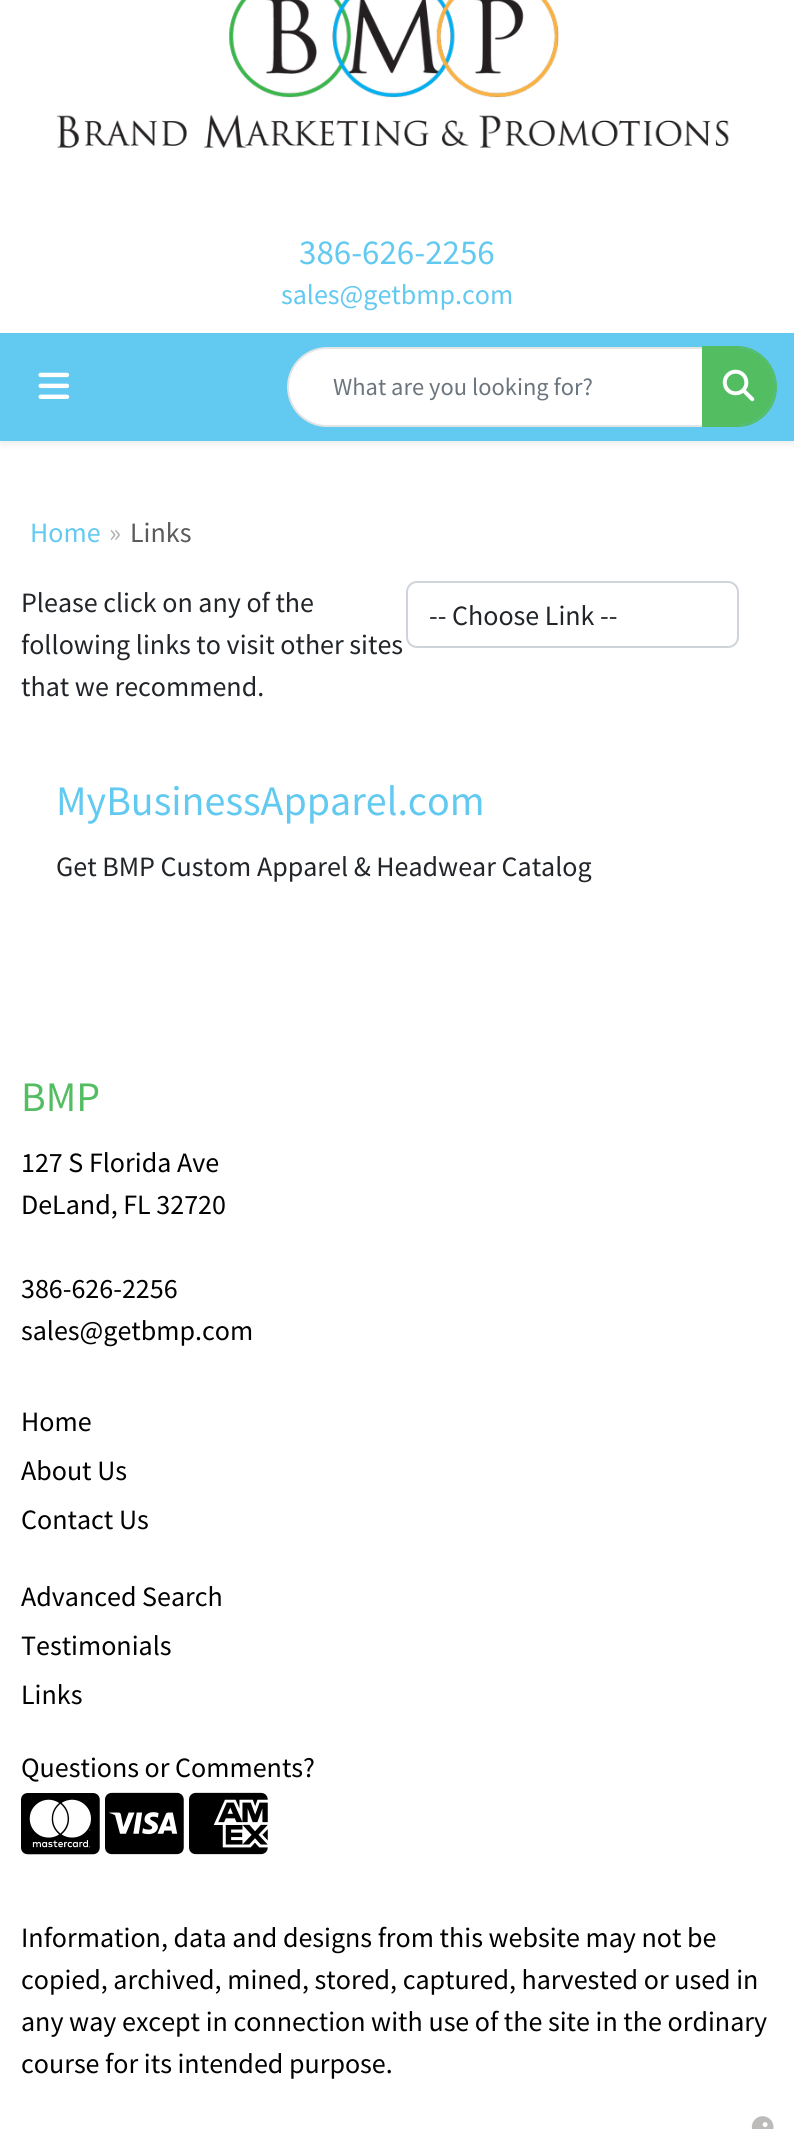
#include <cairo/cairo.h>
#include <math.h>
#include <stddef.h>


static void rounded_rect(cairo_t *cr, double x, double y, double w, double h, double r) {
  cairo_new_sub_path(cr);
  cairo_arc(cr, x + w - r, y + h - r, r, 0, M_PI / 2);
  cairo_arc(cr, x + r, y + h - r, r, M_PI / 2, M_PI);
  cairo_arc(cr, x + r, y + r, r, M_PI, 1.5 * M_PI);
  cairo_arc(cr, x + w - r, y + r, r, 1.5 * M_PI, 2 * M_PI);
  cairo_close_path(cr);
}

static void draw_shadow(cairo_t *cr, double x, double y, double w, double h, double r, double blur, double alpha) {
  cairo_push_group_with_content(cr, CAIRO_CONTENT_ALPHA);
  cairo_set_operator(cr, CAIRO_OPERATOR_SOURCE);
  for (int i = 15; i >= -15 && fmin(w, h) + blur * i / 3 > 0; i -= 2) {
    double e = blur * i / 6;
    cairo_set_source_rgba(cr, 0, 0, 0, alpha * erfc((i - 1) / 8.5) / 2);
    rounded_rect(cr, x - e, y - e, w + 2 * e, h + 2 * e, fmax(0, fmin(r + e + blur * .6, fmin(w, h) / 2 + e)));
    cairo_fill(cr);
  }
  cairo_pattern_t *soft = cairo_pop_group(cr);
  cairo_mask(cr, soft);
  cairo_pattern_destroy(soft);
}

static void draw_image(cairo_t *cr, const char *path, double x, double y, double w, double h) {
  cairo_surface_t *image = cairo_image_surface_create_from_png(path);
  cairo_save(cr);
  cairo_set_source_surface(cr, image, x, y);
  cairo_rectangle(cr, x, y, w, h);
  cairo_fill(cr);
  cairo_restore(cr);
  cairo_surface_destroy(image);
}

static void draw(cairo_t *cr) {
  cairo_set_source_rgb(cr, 1, 1, 1);
  cairo_paint(cr);
  draw_image(cr, "images/1.png", 56, 0, 673, 148);
  cairo_set_source_rgb(cr, 0, 0, 0);
  draw_shadow(cr, 0, 336, 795, 109, 0, 3.5, 0.07);
  cairo_set_source_rgb(cr, 98 / 255.0, 201 / 255.0, 240 / 255.0);
  cairo_rectangle(cr, 0, 333, 794, 108);
  cairo_fill(cr);
  draw_image(cr, "images/2.png", 38, 372, 32, 27);
  cairo_set_source_rgb(cr, 1, 1, 1);
  cairo_new_path(cr);
  cairo_move_to(cr, 327, 348);
  cairo_line_to(cr, 703, 348);
  cairo_line_to(cr, 703, 426);
  cairo_line_to(cr, 327, 426);
  cairo_curve_to(cr, 305.5, 426, 288, 408.5, 288, 387);
  cairo_curve_to(cr, 288, 365.5, 305.5, 348, 327, 348);
  cairo_close_path(cr);
  cairo_fill_preserve(cr);
  cairo_set_source_rgb(cr, 228 / 255.0, 228 / 255.0, 228 / 255.0);
  cairo_stroke(cr);
  cairo_set_source_rgb(cr, 83 / 255.0, 189 / 255.0, 98 / 255.0);
  cairo_new_path(cr);
  cairo_move_to(cr, 702, 348);
  cairo_line_to(cr, 736.5, 348);
  cairo_curve_to(cr, 758, 348, 775, 365, 775, 386.5);
  cairo_curve_to(cr, 775, 408, 758, 425, 736.5, 425);
  cairo_line_to(cr, 702, 425);
  cairo_close_path(cr);
  cairo_fill(cr);
  cairo_set_fill_rule(cr, CAIRO_FILL_RULE_EVEN_ODD);
  cairo_new_path(cr);
  cairo_move_to(cr, 702, 346);
  cairo_line_to(cr, 737, 346);
  cairo_curve_to(cr, 759, 346, 777, 365, 777, 387);
  cairo_curve_to(cr, 777, 409, 759, 427, 737, 427);
  cairo_line_to(cr, 702, 427);
  cairo_close_path(cr);
  cairo_move_to(cr, 702, 348);
  cairo_line_to(cr, 737, 348);
  cairo_curve_to(cr, 758, 348, 775, 365, 775, 387);
  cairo_curve_to(cr, 775, 408, 758, 425, 737, 425);
  cairo_line_to(cr, 702, 425);
  cairo_close_path(cr);
  cairo_fill(cr);
  draw_image(cr, "images/3.png", 722, 369, 33, 33);
  rounded_rect(cr, 407, 582, 331, 65, 10);
  cairo_set_source_rgb(cr, 206 / 255.0, 212 / 255.0, 218 / 255.0);
  cairo_stroke(cr);
  draw_image(cr, "images/4.png", 21, 1793, 79, 62);
  draw_image(cr, "images/5.png", 105, 1792, 79, 63);
  draw_image(cr, "images/6.png", 189, 1792, 79, 63);
  draw_image(cr, "images/7.png", 751, 2116, 23, 13);
  cairo_select_font_face(cr, "Source Sans Pro", CAIRO_FONT_SLANT_NORMAL, CAIRO_FONT_WEIGHT_NORMAL);
  cairo_set_font_size(cr, 35);
  cairo_set_source_rgb(cr, 98 / 255.0, 201 / 255.0, 240 / 255.0);
  cairo_move_to(cr, 299, 264);
  cairo_show_text(cr, "386-626-2256");
  cairo_set_font_size(cr, 28);
  cairo_move_to(cr, 281, 304);
  cairo_show_text(cr, "sales@getbmp.com");
  cairo_set_font_size(cr, 24.5);
  cairo_set_source_rgb(cr, 108 / 255.0, 117 / 255.0, 125 / 255.0);
  cairo_move_to(cr, 333, 395);
  cairo_show_text(cr, "What are you looking for?");
  cairo_set_font_size(cr, 28);
  cairo_set_source_rgb(cr, 98 / 255.0, 201 / 255.0, 240 / 255.0);
  cairo_move_to(cr, 30, 542);
  cairo_show_text(cr, "Home");
  cairo_set_source_rgb(cr, 178 / 255.0, 177 / 255.0, 177 / 255.0);
  cairo_move_to(cr, 109, 542);
  cairo_show_text(cr, "»");
  cairo_set_source_rgb(cr, 91 / 255.0, 90 / 255.0, 90 / 255.0);
  cairo_move_to(cr, 130, 542);
  cairo_show_text(cr, "Links");
  cairo_set_source_rgb(cr, 33 / 255.0, 37 / 255.0, 41 / 255.0);
  cairo_move_to(cr, 21, 612);
  cairo_show_text(cr, "Please click on any of the");
  cairo_move_to(cr, 21, 654);
  cairo_show_text(cr, "following links to visit other sites");
  cairo_move_to(cr, 21, 696);
  cairo_show_text(cr, "that we recommend.");
  cairo_move_to(cr, 429, 625);
  cairo_show_text(cr, "-- Choose Link --");
  cairo_set_font_size(cr, 42);
  cairo_set_source_rgb(cr, 98 / 255.0, 201 / 255.0, 240 / 255.0);
  cairo_move_to(cr, 56, 815);
  cairo_show_text(cr, "MyBusinessApparel.com");
  cairo_set_font_size(cr, 28);
  cairo_set_source_rgb(cr, 33 / 255.0, 37 / 255.0, 41 / 255.0);
  cairo_move_to(cr, 56, 876);
  cairo_show_text(cr, "Get BMP Custom Apparel & Headwear Catalog");
  cairo_set_font_size(cr, 42);
  cairo_set_source_rgb(cr, 83 / 255.0, 189 / 255.0, 98 / 255.0);
  cairo_move_to(cr, 21, 1111);
  cairo_show_text(cr, "BMP");
  cairo_set_font_size(cr, 28);
  cairo_set_source_rgb(cr, 0, 0, 0);
  cairo_move_to(cr, 21, 1172);
  cairo_show_text(cr, "127 S Florida Ave");
  cairo_move_to(cr, 21, 1214);
  cairo_show_text(cr, "DeLand, FL 32720");
  cairo_move_to(cr, 21, 1298);
  cairo_show_text(cr, "386-626-2256");
  cairo_move_to(cr, 21, 1340);
  cairo_show_text(cr, "sales@getbmp.com");
  cairo_move_to(cr, 21, 1431);
  cairo_show_text(cr, "Home");
  cairo_move_to(cr, 21, 1480);
  cairo_show_text(cr, "About Us");
  cairo_move_to(cr, 21, 1529);
  cairo_show_text(cr, "Contact Us");
  cairo_move_to(cr, 21, 1606);
  cairo_show_text(cr, "Advanced Search");
  cairo_move_to(cr, 21, 1655);
  cairo_show_text(cr, "Testimonials");
  cairo_move_to(cr, 21, 1704);
  cairo_show_text(cr, "Links");
  cairo_move_to(cr, 21, 1777);
  cairo_show_text(cr, "Questions or Comments?");
  cairo_move_to(cr, 21, 1947);
  cairo_show_text(cr, "Information, data and designs from this website may not be");
  cairo_move_to(cr, 21, 1989);
  cairo_show_text(cr, "copied, archived, mined, stored, captured, harvested or used in");
  cairo_move_to(cr, 21, 2031);
  cairo_show_text(cr, "any way except in connection with use of the site in the ordinary");
  cairo_move_to(cr, 21, 2073);
  cairo_show_text(cr, "course for its intended purpose.");
}

int main(void) {
  cairo_surface_t *surface = cairo_image_surface_create(CAIRO_FORMAT_RGB24, 794, 2129);
  cairo_t *cr = cairo_create(surface);
  cairo_font_options_t *options = cairo_font_options_create();
  cairo_font_options_set_hint_metrics(options, CAIRO_HINT_METRICS_OFF);
  cairo_font_options_set_hint_style(options, CAIRO_HINT_STYLE_NONE);
  cairo_set_font_options(cr, options);
  cairo_set_miter_limit(cr, 4);
  draw(cr);
  cairo_surface_write_to_png(surface, "out.png");
  cairo_font_options_destroy(options);
  cairo_destroy(cr);
  cairo_surface_destroy(surface);
  return 0;
}
